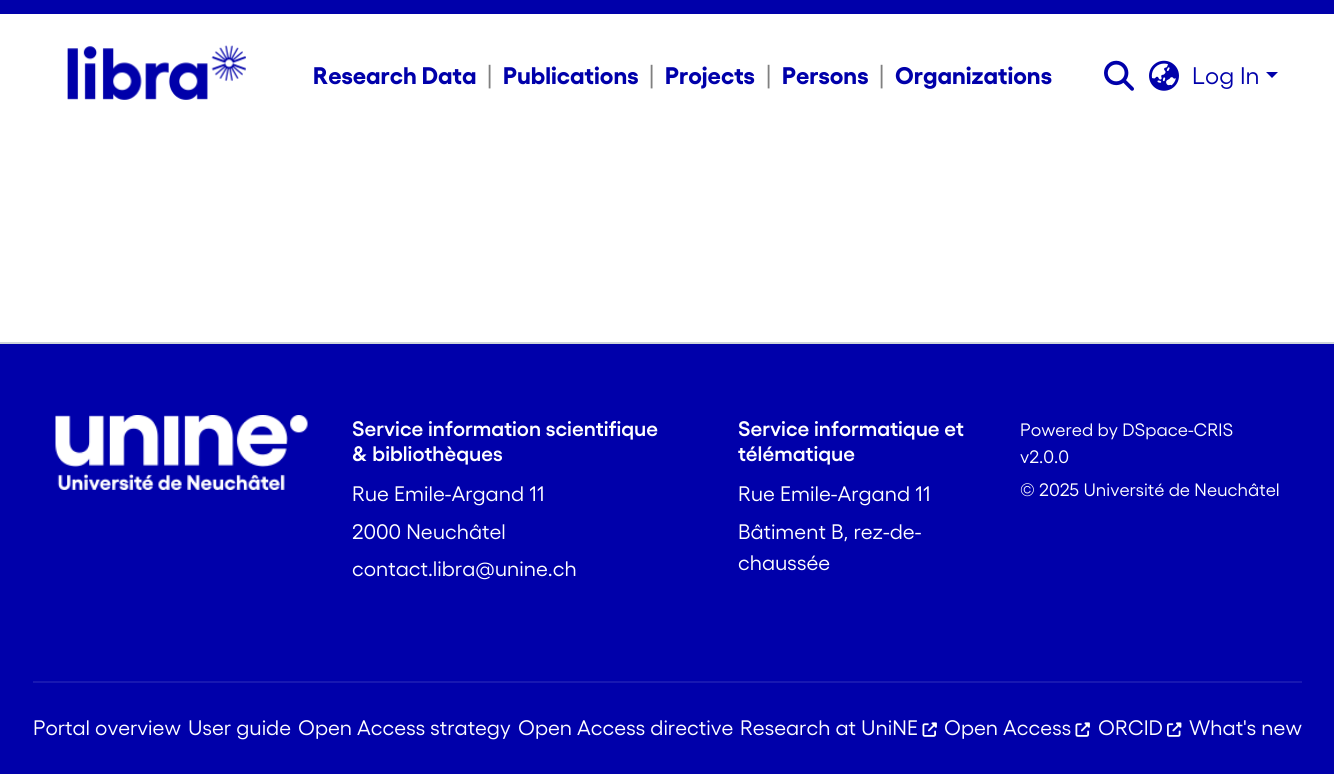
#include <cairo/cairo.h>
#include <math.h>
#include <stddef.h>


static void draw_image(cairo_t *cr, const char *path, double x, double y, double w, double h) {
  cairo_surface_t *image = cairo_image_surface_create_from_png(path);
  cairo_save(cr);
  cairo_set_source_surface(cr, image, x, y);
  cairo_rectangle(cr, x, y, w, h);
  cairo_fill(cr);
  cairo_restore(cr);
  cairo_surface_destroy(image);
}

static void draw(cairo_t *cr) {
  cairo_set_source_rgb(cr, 1, 1, 1);
  cairo_paint(cr);
  cairo_set_source_rgb(cr, 0, 0, 170 / 255.0);
  cairo_rectangle(cr, 0, 0, 1334, 14);
  cairo_fill(cr);
  draw_image(cr, "images/1.png", 67, 45, 179, 55);
  draw_image(cr, "images/2.png", 1104, 60, 30, 31);
  draw_image(cr, "images/3.png", 1149, 60, 30, 31);
  cairo_new_path(cr);
  cairo_move_to(cr, 1266, 72);
  cairo_line_to(cr, 1278, 72);
  cairo_line_to(cr, 1272, 78);
  cairo_close_path(cr);
  cairo_fill(cr);
  cairo_rectangle(cr, 0, 344, 1334, 430);
  cairo_fill(cr);
  cairo_set_source_rgb(cr, 206 / 255.0, 212 / 255.0, 218 / 255.0);
  cairo_rectangle(cr, 0, 342, 1334, 2);
  cairo_fill(cr);
  draw_image(cr, "images/4.png", 55, 415, 253, 75);
  cairo_set_source_rgb(cr, 24 / 255.0, 24 / 255.0, 178 / 255.0);
  cairo_rectangle(cr, 33, 681, 1269, 2);
  cairo_fill(cr);
  draw_image(cr, "images/5.png", 922, 722, 15, 15);
  draw_image(cr, "images/5.png", 1075, 722, 15, 15);
  draw_image(cr, "images/6.png", 1167, 722, 15, 15);
  cairo_select_font_face(cr, "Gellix", CAIRO_FONT_SLANT_NORMAL, CAIRO_FONT_WEIGHT_BOLD);
  cairo_set_font_size(cr, 24);
  cairo_set_source_rgb(cr, 0, 0, 170 / 255.0);
  cairo_move_to(cr, 313, 84);
  cairo_show_text(cr, "Research Data");
  cairo_select_font_face(cr, "Gellix", CAIRO_FONT_SLANT_NORMAL, CAIRO_FONT_WEIGHT_NORMAL);
  cairo_set_source_rgb(cr, 128 / 255.0, 128 / 255.0, 128 / 255.0);
  cairo_move_to(cr, 487, 84);
  cairo_show_text(cr, "|");
  cairo_select_font_face(cr, "Gellix", CAIRO_FONT_SLANT_NORMAL, CAIRO_FONT_WEIGHT_BOLD);
  cairo_set_source_rgb(cr, 0, 0, 170 / 255.0);
  cairo_move_to(cr, 503, 84);
  cairo_show_text(cr, "Publications");
  cairo_select_font_face(cr, "Gellix", CAIRO_FONT_SLANT_NORMAL, CAIRO_FONT_WEIGHT_NORMAL);
  cairo_set_source_rgb(cr, 128 / 255.0, 128 / 255.0, 128 / 255.0);
  cairo_move_to(cr, 649, 84);
  cairo_show_text(cr, "|");
  cairo_select_font_face(cr, "Gellix", CAIRO_FONT_SLANT_NORMAL, CAIRO_FONT_WEIGHT_BOLD);
  cairo_set_source_rgb(cr, 0, 0, 170 / 255.0);
  cairo_move_to(cr, 665, 84);
  cairo_show_text(cr, "Projects");
  cairo_select_font_face(cr, "Gellix", CAIRO_FONT_SLANT_NORMAL, CAIRO_FONT_WEIGHT_NORMAL);
  cairo_set_source_rgb(cr, 128 / 255.0, 128 / 255.0, 128 / 255.0);
  cairo_move_to(cr, 766, 84);
  cairo_show_text(cr, "|");
  cairo_select_font_face(cr, "Gellix", CAIRO_FONT_SLANT_NORMAL, CAIRO_FONT_WEIGHT_BOLD);
  cairo_set_source_rgb(cr, 0, 0, 170 / 255.0);
  cairo_move_to(cr, 782, 84);
  cairo_show_text(cr, "Persons");
  cairo_select_font_face(cr, "Gellix", CAIRO_FONT_SLANT_NORMAL, CAIRO_FONT_WEIGHT_NORMAL);
  cairo_set_source_rgb(cr, 128 / 255.0, 128 / 255.0, 128 / 255.0);
  cairo_move_to(cr, 879, 84);
  cairo_show_text(cr, "|");
  cairo_select_font_face(cr, "Gellix", CAIRO_FONT_SLANT_NORMAL, CAIRO_FONT_WEIGHT_BOLD);
  cairo_set_source_rgb(cr, 0, 0, 170 / 255.0);
  cairo_move_to(cr, 895, 84);
  cairo_show_text(cr, "Organizations");
  cairo_select_font_face(cr, "Gellix", CAIRO_FONT_SLANT_NORMAL, CAIRO_FONT_WEIGHT_NORMAL);
  cairo_move_to(cr, 1192, 84);
  cairo_show_text(cr, "Log In");
  cairo_select_font_face(cr, "Gellix SemiBold", CAIRO_FONT_SLANT_NORMAL, CAIRO_FONT_WEIGHT_NORMAL);
  cairo_set_font_size(cr, 21);
  cairo_set_source_rgb(cr, 1, 1, 1);
  cairo_move_to(cr, 352, 436);
  cairo_show_text(cr, "Service information scientifique");
  cairo_move_to(cr, 352, 461);
  cairo_show_text(cr, "& bibliothèques");
  cairo_select_font_face(cr, "Gellix", CAIRO_FONT_SLANT_NORMAL, CAIRO_FONT_WEIGHT_NORMAL);
  cairo_move_to(cr, 352, 501);
  cairo_show_text(cr, "Rue Emile-Argand 11");
  cairo_move_to(cr, 352, 539);
  cairo_show_text(cr, "2000 Neuchâtel");
  cairo_move_to(cr, 352, 576);
  cairo_show_text(cr, "contact.libra@unine.ch");
  cairo_select_font_face(cr, "Gellix SemiBold", CAIRO_FONT_SLANT_NORMAL, CAIRO_FONT_WEIGHT_NORMAL);
  cairo_move_to(cr, 738, 436);
  cairo_show_text(cr, "Service informatique et");
  cairo_move_to(cr, 738, 461);
  cairo_show_text(cr, "télématique");
  cairo_select_font_face(cr, "Gellix", CAIRO_FONT_SLANT_NORMAL, CAIRO_FONT_WEIGHT_NORMAL);
  cairo_move_to(cr, 738, 501);
  cairo_show_text(cr, "Rue Emile-Argand 11");
  cairo_move_to(cr, 738, 539);
  cairo_show_text(cr, "Bâtiment B, rez-de-");
  cairo_move_to(cr, 738, 570);
  cairo_show_text(cr, "chaussée");
  cairo_set_font_size(cr, 18);
  cairo_move_to(cr, 1020, 436);
  cairo_show_text(cr, "Powered by DSpace-CRIS");
  cairo_move_to(cr, 1020, 463);
  cairo_show_text(cr, "v2.0.0");
  cairo_move_to(cr, 1020, 496);
  cairo_show_text(cr, "© 2025 Université de Neuchâtel");
  cairo_set_font_size(cr, 21);
  cairo_move_to(cr, 33, 735);
  cairo_show_text(cr, "Portal overview");
  cairo_move_to(cr, 188, 735);
  cairo_show_text(cr, "User guide");
  cairo_move_to(cr, 298, 735);
  cairo_show_text(cr, "Open Access strategy");
  cairo_move_to(cr, 518, 735);
  cairo_show_text(cr, "Open Access directive");
  cairo_move_to(cr, 740, 735);
  cairo_show_text(cr, "Research at UniNE");
  cairo_move_to(cr, 944, 735);
  cairo_show_text(cr, "Open Access");
  cairo_move_to(cr, 1098, 735);
  cairo_show_text(cr, "ORCID");
  cairo_move_to(cr, 1189, 735);
  cairo_show_text(cr, "What's new");
}

int main(void) {
  cairo_surface_t *surface = cairo_image_surface_create(CAIRO_FORMAT_RGB24, 1334, 775);
  cairo_t *cr = cairo_create(surface);
  cairo_font_options_t *options = cairo_font_options_create();
  cairo_font_options_set_hint_metrics(options, CAIRO_HINT_METRICS_OFF);
  cairo_font_options_set_hint_style(options, CAIRO_HINT_STYLE_NONE);
  cairo_set_font_options(cr, options);
  cairo_set_miter_limit(cr, 4);
  draw(cr);
  cairo_surface_write_to_png(surface, "out.png");
  cairo_font_options_destroy(options);
  cairo_destroy(cr);
  cairo_surface_destroy(surface);
  return 0;
}
